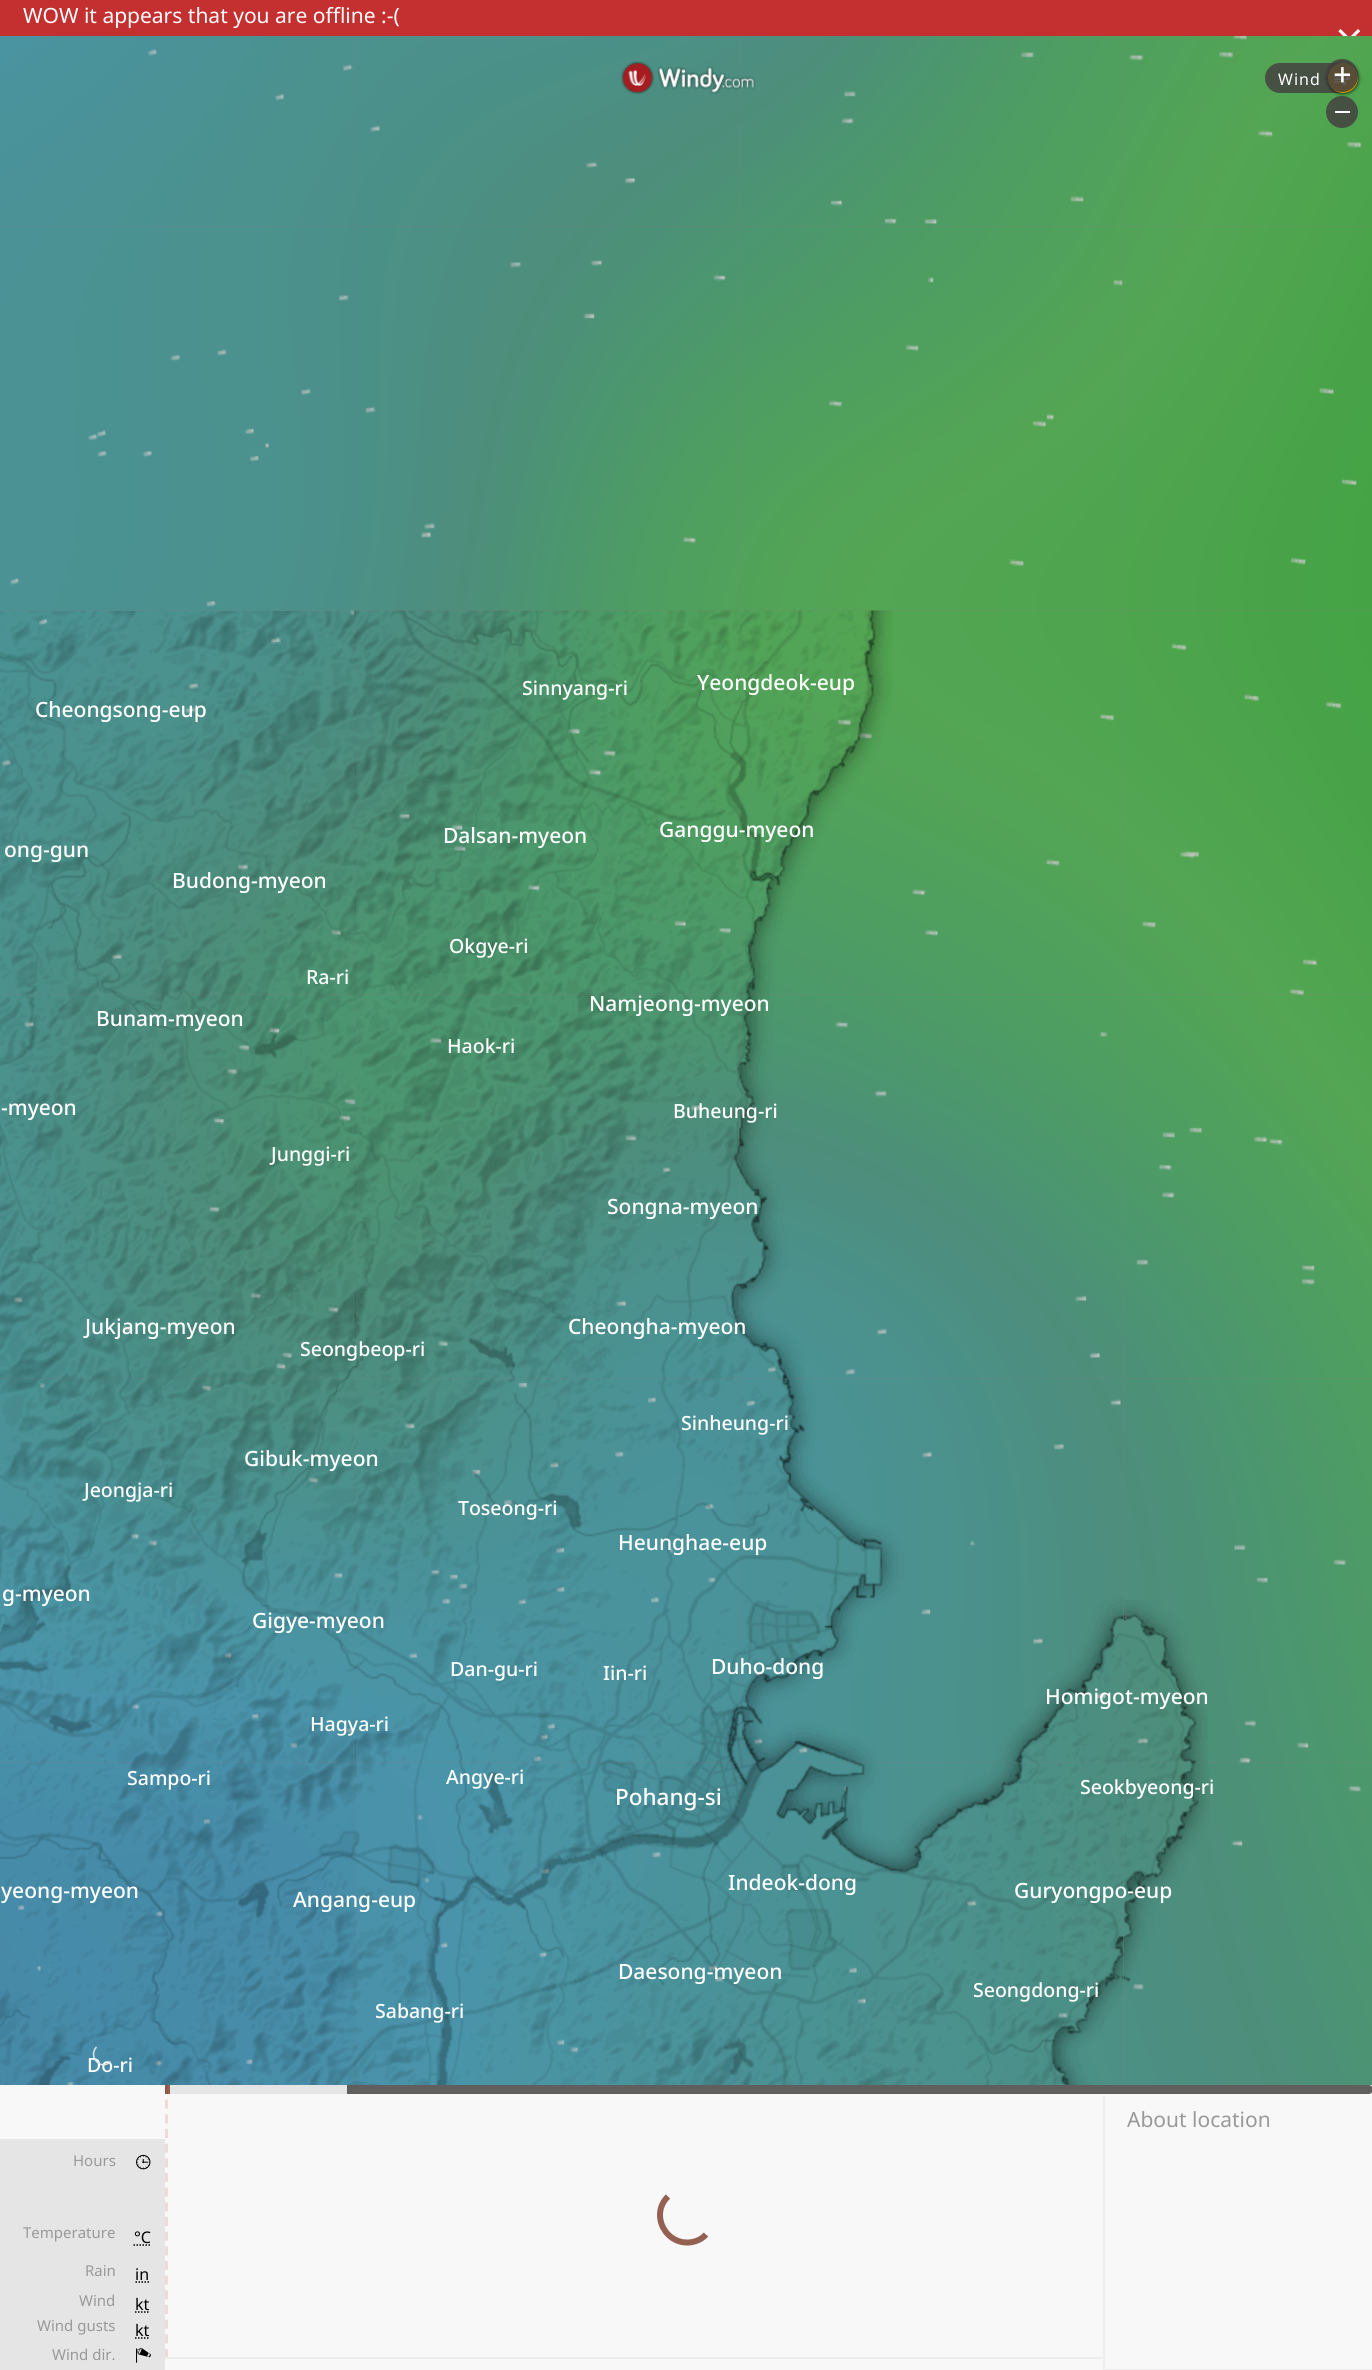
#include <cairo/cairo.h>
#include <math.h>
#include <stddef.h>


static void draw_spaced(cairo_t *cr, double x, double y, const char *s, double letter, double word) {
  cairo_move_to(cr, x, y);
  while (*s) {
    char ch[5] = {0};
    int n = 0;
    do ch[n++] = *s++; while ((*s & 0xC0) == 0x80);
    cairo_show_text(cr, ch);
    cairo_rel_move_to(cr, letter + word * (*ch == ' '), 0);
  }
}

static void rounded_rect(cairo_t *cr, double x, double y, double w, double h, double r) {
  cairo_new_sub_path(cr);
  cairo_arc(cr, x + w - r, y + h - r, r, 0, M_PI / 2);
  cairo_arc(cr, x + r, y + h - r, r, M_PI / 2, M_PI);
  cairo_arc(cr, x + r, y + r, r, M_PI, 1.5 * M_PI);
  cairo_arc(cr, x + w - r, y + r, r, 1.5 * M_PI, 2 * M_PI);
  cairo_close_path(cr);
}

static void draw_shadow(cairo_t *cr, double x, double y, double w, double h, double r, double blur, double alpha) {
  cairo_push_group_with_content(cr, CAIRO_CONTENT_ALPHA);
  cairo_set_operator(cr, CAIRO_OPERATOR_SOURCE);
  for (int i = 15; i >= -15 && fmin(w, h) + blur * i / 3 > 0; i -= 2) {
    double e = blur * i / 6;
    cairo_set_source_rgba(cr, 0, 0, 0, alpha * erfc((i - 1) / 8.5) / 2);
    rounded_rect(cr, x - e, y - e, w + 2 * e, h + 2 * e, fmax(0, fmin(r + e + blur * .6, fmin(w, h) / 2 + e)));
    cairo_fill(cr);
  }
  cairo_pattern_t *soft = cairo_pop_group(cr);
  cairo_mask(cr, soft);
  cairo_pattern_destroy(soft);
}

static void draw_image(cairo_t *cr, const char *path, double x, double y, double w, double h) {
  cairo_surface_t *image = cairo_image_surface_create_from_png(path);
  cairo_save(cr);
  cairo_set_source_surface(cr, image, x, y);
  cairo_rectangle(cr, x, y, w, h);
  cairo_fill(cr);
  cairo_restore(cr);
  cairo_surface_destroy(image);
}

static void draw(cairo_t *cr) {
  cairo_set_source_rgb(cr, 128 / 255.0, 128 / 255.0, 128 / 255.0);
  cairo_paint(cr);
  cairo_set_source_rgb(cr, 196 / 255.0, 47 / 255.0, 47 / 255.0);
  cairo_rectangle(cr, 0, 0, 1372, 36);
  cairo_fill(cr);
  draw_image(cr, "images/1.png", 1338, 29, 23, 7);
  draw_image(cr, "images/19.png", 355, 994, 385, 385);
  draw_image(cr, "images/20.png", 739, 994, 385, 385);
  draw_image(cr, "images/15.png", 355, 610, 385, 385);
  draw_image(cr, "images/23.png", 355, 1378, 385, 385);
  draw_image(cr, "images/18.png", 0, 994, 356, 385);
  draw_image(cr, "images/14.png", 0, 610, 356, 385);
  draw_image(cr, "images/16.png", 739, 610, 385, 385);
  draw_image(cr, "images/11.png", 355, 226, 385, 385);
  draw_image(cr, "images/10.png", 0, 226, 356, 385);
  draw_image(cr, "images/24.png", 739, 1378, 385, 385);
  draw_image(cr, "images/21.png", 1123, 994, 249, 385);
  draw_image(cr, "images/17.png", 1123, 610, 249, 385);
  draw_image(cr, "images/12.png", 739, 226, 385, 385);
  draw_image(cr, "images/7.png", 355, 36, 385, 191);
  draw_image(cr, "images/6.png", 0, 36, 356, 191);
  draw_image(cr, "images/13.png", 1123, 226, 249, 385);
  draw_image(cr, "images/8.png", 739, 36, 385, 191);
  draw_image(cr, "images/9.png", 1123, 36, 249, 191);
  draw_image(cr, "images/22.png", 0, 1378, 356, 385);
  draw_image(cr, "images/25.png", 1123, 1378, 249, 385);
  draw_image(cr, "images/27.png", 355, 1762, 385, 323);
  draw_image(cr, "images/26.png", 0, 1762, 356, 323);
  draw_image(cr, "images/28.png", 739, 1762, 385, 323);
  draw_image(cr, "images/29.png", 1123, 1762, 249, 323);
  draw_image(cr, "images/30.png", 1, 36, 1361, 2049);
  draw_image(cr, "images/2.png", 621, 61, 34, 34);
  draw_image(cr, "images/3.png", 657, 66, 99, 28);
  cairo_set_source_rgba(cr, 68 / 255.0, 65 / 255.0, 65 / 255.0, 0.84);
  rounded_rect(cr, 1265, 63, 93, 30, 15);
  cairo_fill(cr);
  cairo_set_source_rgb(cr, 0, 0, 0);
  draw_shadow(cr, 1328, 63, 30, 30, 15, 2, 1);
  cairo_set_source_rgb(cr, 212 / 255.0, 149 / 255.0, 0);
  cairo_arc(cr, 1343, 78, 15, 0, 2 * M_PI);
  cairo_fill(cr);
  draw_image(cr, "images/4.png", 1333, 73, 17, 12);
  cairo_set_source_rgba(cr, 68 / 255.0, 65 / 255.0, 65 / 255.0, 0.84);
  rounded_rect(cr, 1326, 59, 32, 33, 16);
  cairo_fill(cr);
  draw_image(cr, "images/5.png", 1334, 67, 17, 16);
  cairo_arc(cr, 1342, 112, 16, 0, 2 * M_PI);
  cairo_fill(cr);
  cairo_set_source_rgb(cr, 1, 1, 1);
  cairo_rectangle(cr, 1335, 111, 15, 2);
  cairo_fill(cr);
  draw_image(cr, "images/35.png", 355, 994, 385, 385);
  draw_image(cr, "images/36.png", 739, 994, 66, 385);
  draw_image(cr, "images/32.png", 355, 610, 385, 385);
  draw_image(cr, "images/31.png", 0, 611, 356, 384);
  draw_image(cr, "images/33.png", 739, 610, 154, 385);
  draw_image(cr, "images/38.png", 355, 1378, 385, 385);
  draw_image(cr, "images/34.png", 0, 995, 356, 384);
  draw_image(cr, "images/37.png", 0, 1379, 356, 384);
  draw_image(cr, "images/39.png", 739, 1378, 385, 385);
  draw_image(cr, "images/40.png", 1124, 1600, 84, 163);
  draw_image(cr, "images/42.png", 355, 1762, 385, 323);
  draw_image(cr, "images/41.png", 0, 1763, 356, 322);
  draw_image(cr, "images/43.png", 739, 1762, 385, 323);
  draw_image(cr, "images/44.png", 1124, 1763, 86, 225);
  cairo_set_source_rgb(cr, 248 / 255.0, 248 / 255.0, 248 / 255.0);
  cairo_rectangle(cr, 0, 2085, 1372, 285);
  cairo_fill(cr);
  cairo_set_source_rgb(cr, 97 / 255.0, 94 / 255.0, 94 / 255.0);
  rounded_rect(cr, 165, 2085, 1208, 9, 4.5);
  cairo_fill(cr);
  cairo_set_source_rgb(cr, 148 / 255.0, 96 / 255.0, 81 / 255.0);
  cairo_rectangle(cr, 165, 2085, 5, 9);
  cairo_fill(cr);
  cairo_set_source_rgb(cr, 229 / 255.0, 229 / 255.0, 229 / 255.0);
  cairo_rectangle(cr, 170, 2085, 177, 9);
  cairo_fill(cr);
  cairo_new_path(cr);
  cairo_move_to(cr, 166.5, 2085);
  cairo_line_to(cr, 166.5, 2358);
  cairo_set_source_rgba(cr, 157 / 255.0, 3 / 255.0, 0, 0.12);
  cairo_set_line_width(cr, 3);
  cairo_set_dash(cr, (double[]){9, 5.67}, 2, 0);
  cairo_stroke(cr);
  cairo_set_source_rgb(cr, 237 / 255.0, 237 / 255.0, 237 / 255.0);
  cairo_rectangle(cr, 1103, 2369, 269, 1);
  cairo_fill(cr);
  cairo_rectangle(cr, 1103, 2097, 2, 273);
  cairo_fill(cr);
  cairo_rectangle(cr, 165, 2357, 939, 2);
  cairo_fill(cr);
  cairo_set_source_rgb(cr, 229 / 255.0, 229 / 255.0, 229 / 255.0);
  cairo_rectangle(cr, 0, 2139, 165, 231);
  cairo_fill(cr);
  draw_image(cr, "images/45.png", 136, 2154, 15, 16);
  cairo_new_path(cr);
  cairo_move_to(cr, 133.5, 2245);
  cairo_line_to(cr, 151, 2245);
  cairo_set_source_rgb(cr, 0, 0, 0);
  cairo_set_line_width(cr, 1.5);
  cairo_set_dash(cr, (double[]){1.5, 1.5}, 2, 0);
  cairo_stroke(cr);
  cairo_new_path(cr);
  cairo_move_to(cr, 135.5, 2282);
  cairo_line_to(cr, 149.5, 2282);
  cairo_stroke(cr);
  cairo_new_path(cr);
  cairo_move_to(cr, 135, 2312);
  cairo_line_to(cr, 150, 2312);
  cairo_stroke(cr);
  cairo_new_path(cr);
  cairo_move_to(cr, 135, 2338);
  cairo_line_to(cr, 150, 2338);
  cairo_stroke(cr);
  draw_image(cr, "images/46.png", 136, 2348, 15, 15);
  cairo_new_path(cr);
  cairo_move_to(cr, 706, 2234.5);
  cairo_curve_to(cr, 702.5, 2238.5, 697.5, 2241, 692.5, 2242);
  cairo_curve_to(cr, 666.5, 2247, 649, 2215, 668, 2196.5);
  cairo_set_source_rgb(cr, 148 / 255.0, 96 / 255.0, 81 / 255.0);
  cairo_set_line_width(cr, 6);
  cairo_set_dash(cr, NULL, 0, 0);
  cairo_stroke(cr);
  cairo_select_font_face(cr, "Noto Sans", CAIRO_FONT_SLANT_NORMAL, CAIRO_FONT_WEIGHT_NORMAL);
  cairo_set_font_size(cr, 21);
  cairo_set_source_rgb(cr, 1, 1, 1);
  cairo_move_to(cr, 23, 23);
  cairo_show_text(cr, "WOW it appears that you are offline :-(");
  cairo_set_font_size(cr, 16);
  draw_spaced(cr, 1278, 85, "Wind", 1, 0);
  cairo_select_font_face(cr, "Noto Sans Medium", CAIRO_FONT_SLANT_NORMAL, CAIRO_FONT_WEIGHT_NORMAL);
  cairo_set_font_size(cr, 21);
  cairo_move_to(cr, 697, 690);
  cairo_show_text(cr, "Yeongdeok-eup");
  cairo_move_to(cr, 35, 717);
  cairo_show_text(cr, "Cheongsong-eup");
  cairo_move_to(cr, 4, 857);
  cairo_show_text(cr, "ong-gun");
  cairo_move_to(cr, 172, 888);
  cairo_show_text(cr, "Budong-myeon");
  cairo_set_font_size(cr, 19.5);
  cairo_move_to(cr, 306, 984);
  cairo_show_text(cr, "Ra-ri");
  cairo_move_to(cr, 522, 695);
  cairo_show_text(cr, "Sinnyang-ri");
  cairo_set_font_size(cr, 21);
  cairo_move_to(cr, 443, 843);
  cairo_show_text(cr, "Dalsan-myeon");
  cairo_move_to(cr, 659, 837);
  cairo_show_text(cr, "Ganggu-myeon");
  cairo_set_font_size(cr, 19.5);
  cairo_move_to(cr, 449, 953);
  cairo_show_text(cr, "Okgye-ri");
  cairo_set_font_size(cr, 21);
  cairo_move_to(cr, 96, 1026);
  cairo_show_text(cr, "Bunam-myeon");
  cairo_move_to(cr, 1, 1115);
  cairo_show_text(cr, "-myeon");
  cairo_set_font_size(cr, 19.5);
  cairo_move_to(cr, 271, 1161);
  cairo_show_text(cr, "Junggi-ri");
  cairo_set_font_size(cr, 21);
  cairo_move_to(cr, 85, 1334);
  cairo_show_text(cr, "Jukjang-myeon");
  cairo_move_to(cr, 589, 1011);
  cairo_show_text(cr, "Namjeong-myeon");
  cairo_set_font_size(cr, 19.5);
  cairo_move_to(cr, 447, 1053);
  cairo_show_text(cr, "Haok-ri");
  cairo_move_to(cr, 673, 1118);
  cairo_show_text(cr, "Buheung-ri");
  cairo_set_font_size(cr, 21);
  cairo_move_to(cr, 607, 1214);
  cairo_show_text(cr, "Songna-myeon");
  cairo_move_to(cr, 568, 1334);
  cairo_show_text(cr, "Cheongha-myeon");
  cairo_set_font_size(cr, 19.5);
  cairo_move_to(cr, 300, 1356);
  cairo_show_text(cr, "Seongbeop-ri");
  cairo_set_font_size(cr, 21);
  cairo_move_to(cr, 244, 1466);
  cairo_show_text(cr, "Gibuk-myeon");
  cairo_set_font_size(cr, 19.5);
  cairo_move_to(cr, 84, 1497);
  cairo_show_text(cr, "Jeongja-ri");
  cairo_set_font_size(cr, 21);
  cairo_move_to(cr, 2, 1601);
  cairo_show_text(cr, "g-myeon");
  cairo_move_to(cr, 252, 1628);
  cairo_show_text(cr, "Gigye-myeon");
  cairo_set_font_size(cr, 19.5);
  cairo_move_to(cr, 310, 1731);
  cairo_show_text(cr, "Hagya-ri");
  cairo_move_to(cr, 681, 1430);
  cairo_show_text(cr, "Sinheung-ri");
  cairo_move_to(cr, 458, 1515);
  cairo_show_text(cr, "Toseong-ri");
  cairo_set_font_size(cr, 21);
  cairo_move_to(cr, 618, 1550);
  cairo_show_text(cr, "Heunghae-eup");
  cairo_set_font_size(cr, 19.5);
  cairo_move_to(cr, 450, 1676);
  cairo_show_text(cr, "Dan-gu-ri");
  cairo_move_to(cr, 603, 1680);
  cairo_show_text(cr, "Iin-ri");
  cairo_set_font_size(cr, 21);
  cairo_move_to(cr, 711, 1674);
  cairo_show_text(cr, "Duho-dong");
  cairo_move_to(cr, 1045, 1704);
  cairo_show_text(cr, "Homigot-myeon");
  cairo_set_font_size(cr, 19.5);
  cairo_move_to(cr, 127, 1785);
  cairo_show_text(cr, "Sampo-ri");
  cairo_set_font_size(cr, 21);
  cairo_move_to(cr, 1, 1898);
  cairo_show_text(cr, "yeong-myeon");
  cairo_move_to(cr, 293, 1907);
  cairo_show_text(cr, "Angang-eup");
  cairo_set_font_size(cr, 19.5);
  cairo_move_to(cr, 87, 2072);
  cairo_show_text(cr, "Do-ri");
  cairo_move_to(cr, 446, 1784);
  cairo_show_text(cr, "Angye-ri");
  cairo_set_font_size(cr, 22.5);
  cairo_move_to(cr, 615, 1805);
  cairo_show_text(cr, "Pohang-si");
  cairo_set_font_size(cr, 21);
  cairo_move_to(cr, 618, 1979);
  cairo_show_text(cr, "Daesong-myeon");
  cairo_set_font_size(cr, 19.5);
  cairo_move_to(cr, 375, 2018);
  cairo_show_text(cr, "Sabang-ri");
  cairo_move_to(cr, 1080, 1794);
  cairo_show_text(cr, "Seokbyeong-ri");
  cairo_set_font_size(cr, 21);
  cairo_move_to(cr, 728, 1890);
  cairo_show_text(cr, "Indeok-dong");
  cairo_move_to(cr, 1014, 1898);
  cairo_show_text(cr, "Guryongpo-eup");
  cairo_set_font_size(cr, 19.5);
  cairo_move_to(cr, 973, 1997);
  cairo_show_text(cr, "Seongdong-ri");
  cairo_new_path(cr);
  cairo_move_to(cr, 110.5, 2061.5);
  cairo_curve_to(cr, 101, 2071.5, 87.5, 2056.5, 96.5, 2047);
  cairo_set_source_rgb(cr, 229 / 255.0, 229 / 255.0, 229 / 255.0);
  cairo_set_line_width(cr, 1.5);
  cairo_stroke(cr);
  cairo_select_font_face(cr, "Noto Sans", CAIRO_FONT_SLANT_NORMAL, CAIRO_FONT_WEIGHT_NORMAL);
  cairo_set_font_size(cr, 21);
  cairo_set_source_rgb(cr, 153 / 255.0, 153 / 255.0, 153 / 255.0);
  cairo_move_to(cr, 1127, 2127);
  cairo_show_text(cr, "About location");
  cairo_set_font_size(cr, 15);
  cairo_move_to(cr, 73, 2166);
  cairo_show_text(cr, "Hours");
  cairo_move_to(cr, 23, 2238);
  cairo_show_text(cr, "Temperature");
  cairo_set_font_size(cr, 16);
  cairo_set_source_rgb(cr, 0, 0, 0);
  cairo_move_to(cr, 134, 2243);
  cairo_show_text(cr, "°C");
  cairo_set_font_size(cr, 15);
  cairo_set_source_rgb(cr, 153 / 255.0, 153 / 255.0, 153 / 255.0);
  cairo_move_to(cr, 85, 2276);
  cairo_show_text(cr, "Rain");
  cairo_set_font_size(cr, 16);
  cairo_set_source_rgb(cr, 0, 0, 0);
  cairo_move_to(cr, 135, 2280);
  cairo_show_text(cr, "in");
  cairo_set_font_size(cr, 15);
  cairo_set_source_rgb(cr, 153 / 255.0, 153 / 255.0, 153 / 255.0);
  cairo_move_to(cr, 79, 2306);
  cairo_show_text(cr, "Wind");
  cairo_set_font_size(cr, 16);
  cairo_set_source_rgb(cr, 0, 0, 0);
  cairo_move_to(cr, 135, 2310);
  cairo_show_text(cr, "kt");
  cairo_set_font_size(cr, 15);
  cairo_set_source_rgb(cr, 153 / 255.0, 153 / 255.0, 153 / 255.0);
  cairo_move_to(cr, 37, 2331);
  cairo_show_text(cr, "Wind gusts");
  cairo_set_font_size(cr, 16);
  cairo_set_source_rgb(cr, 0, 0, 0);
  cairo_move_to(cr, 135, 2336);
  cairo_show_text(cr, "kt");
  cairo_set_font_size(cr, 15);
  cairo_set_source_rgb(cr, 153 / 255.0, 153 / 255.0, 153 / 255.0);
  cairo_move_to(cr, 52, 2360);
  cairo_show_text(cr, "Wind dir.");
}

int main(void) {
  cairo_surface_t *surface = cairo_image_surface_create(CAIRO_FORMAT_RGB24, 1372, 2370);
  cairo_t *cr = cairo_create(surface);
  cairo_font_options_t *options = cairo_font_options_create();
  cairo_font_options_set_hint_metrics(options, CAIRO_HINT_METRICS_OFF);
  cairo_font_options_set_hint_style(options, CAIRO_HINT_STYLE_NONE);
  cairo_set_font_options(cr, options);
  cairo_set_miter_limit(cr, 4);
  draw(cr);
  cairo_surface_write_to_png(surface, "out.png");
  cairo_font_options_destroy(options);
  cairo_destroy(cr);
  cairo_surface_destroy(surface);
  return 0;
}
